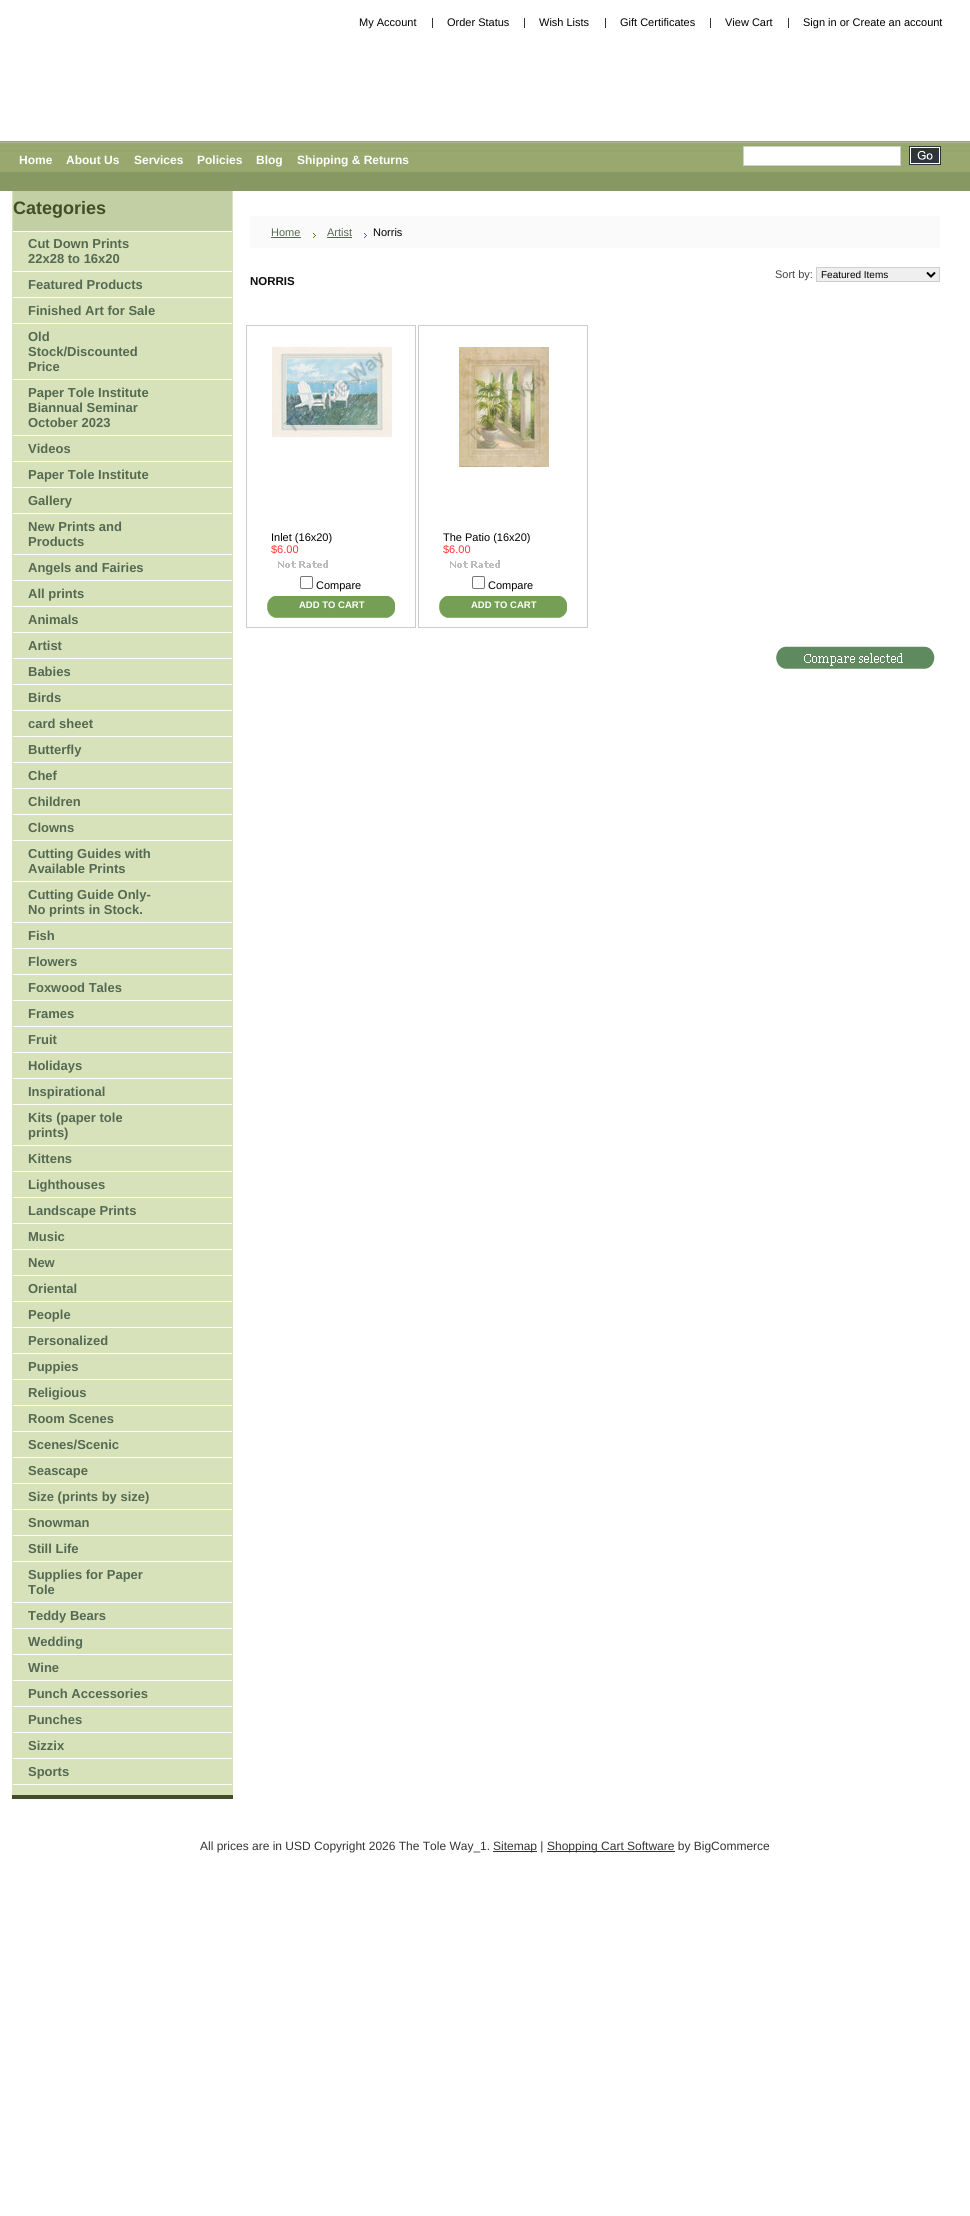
#include <cairo/cairo.h>
#include <math.h>
#include <stddef.h>


static void rounded_rect(cairo_t *cr, double x, double y, double w, double h, double r) {
  cairo_new_sub_path(cr);
  cairo_arc(cr, x + w - r, y + h - r, r, 0, M_PI / 2);
  cairo_arc(cr, x + r, y + h - r, r, M_PI / 2, M_PI);
  cairo_arc(cr, x + r, y + r, r, M_PI, 1.5 * M_PI);
  cairo_arc(cr, x + w - r, y + r, r, 1.5 * M_PI, 2 * M_PI);
  cairo_close_path(cr);
}

static void draw_image(cairo_t *cr, const char *path, double x, double y, double w, double h) {
  cairo_surface_t *image = cairo_image_surface_create_from_png(path);
  cairo_save(cr);
  cairo_set_source_surface(cr, image, x, y);
  cairo_rectangle(cr, x, y, w, h);
  cairo_fill(cr);
  cairo_restore(cr);
  cairo_surface_destroy(image);
}

static void draw(cairo_t *cr) {
  cairo_set_source_rgb(cr, 1, 1, 1);
  cairo_paint(cr);
  draw_image(cr, "images/1.png", 0, 141, 970, 50);
  cairo_set_source_rgb(cr, 51 / 255.0, 51 / 255.0, 51 / 255.0);
  cairo_rectangle(cr, 432, 18, 1, 10);
  cairo_fill(cr);
  cairo_rectangle(cr, 524, 18, 1, 10);
  cairo_fill(cr);
  cairo_rectangle(cr, 605, 18, 1, 10);
  cairo_fill(cr);
  cairo_rectangle(cr, 710, 18, 1, 10);
  cairo_fill(cr);
  cairo_rectangle(cr, 788, 18, 1, 10);
  cairo_fill(cr);
  cairo_set_source_rgb(cr, 1, 1, 1);
  cairo_rectangle(cr, 12, 141, 946, 50);
  cairo_fill(cr);
  draw_image(cr, "images/2.png", 12, 141, 946, 50);
  cairo_rectangle(cr, 743.5, 146.5, 157, 19);
  cairo_fill_preserve(cr);
  cairo_set_source_rgb(cr, 206 / 255.0, 206 / 255.0, 206 / 255.0);
  cairo_set_line_width(cr, 1);
  cairo_stroke(cr);
  draw_image(cr, "images/3.png", 909, 146, 32, 19);
  cairo_set_source_rgb(cr, 215 / 255.0, 226 / 255.0, 186 / 255.0);
  cairo_rectangle(cr, 12, 191, 221, 1604);
  cairo_fill(cr);
  cairo_set_source_rgb(cr, 66 / 255.0, 78 / 255.0, 37 / 255.0);
  cairo_rectangle(cr, 12, 1795, 221, 4);
  cairo_fill(cr);
  cairo_set_source_rgb(cr, 194 / 255.0, 206 / 255.0, 164 / 255.0);
  cairo_rectangle(cr, 13, 191, 219, 40);
  cairo_fill(cr);
  cairo_set_source_rgb(cr, 1, 1, 1);
  cairo_rectangle(cr, 13, 231, 219, 1);
  cairo_fill(cr);
  cairo_rectangle(cr, 13, 271, 219, 1);
  cairo_fill(cr);
  cairo_rectangle(cr, 13, 297, 219, 1);
  cairo_fill(cr);
  cairo_rectangle(cr, 13, 323, 219, 1);
  cairo_fill(cr);
  cairo_rectangle(cr, 13, 379, 219, 1);
  cairo_fill(cr);
  cairo_rectangle(cr, 13, 435, 219, 1);
  cairo_fill(cr);
  cairo_rectangle(cr, 13, 461, 219, 1);
  cairo_fill(cr);
  cairo_rectangle(cr, 13, 487, 219, 1);
  cairo_fill(cr);
  cairo_rectangle(cr, 13, 513, 219, 1);
  cairo_fill(cr);
  cairo_rectangle(cr, 13, 554, 219, 1);
  cairo_fill(cr);
  cairo_rectangle(cr, 13, 580, 219, 1);
  cairo_fill(cr);
  cairo_rectangle(cr, 13, 606, 219, 1);
  cairo_fill(cr);
  cairo_rectangle(cr, 13, 632, 219, 1);
  cairo_fill(cr);
  cairo_rectangle(cr, 13, 658, 219, 1);
  cairo_fill(cr);
  cairo_rectangle(cr, 13, 684, 219, 1);
  cairo_fill(cr);
  cairo_rectangle(cr, 13, 710, 219, 1);
  cairo_fill(cr);
  cairo_rectangle(cr, 13, 736, 219, 1);
  cairo_fill(cr);
  cairo_rectangle(cr, 13, 762, 219, 1);
  cairo_fill(cr);
  cairo_rectangle(cr, 13, 788, 219, 1);
  cairo_fill(cr);
  cairo_rectangle(cr, 13, 814, 219, 1);
  cairo_fill(cr);
  cairo_rectangle(cr, 13, 840, 219, 1);
  cairo_fill(cr);
  cairo_rectangle(cr, 13, 881, 219, 1);
  cairo_fill(cr);
  cairo_rectangle(cr, 13, 922, 219, 1);
  cairo_fill(cr);
  cairo_rectangle(cr, 13, 948, 219, 1);
  cairo_fill(cr);
  cairo_rectangle(cr, 13, 974, 219, 1);
  cairo_fill(cr);
  cairo_rectangle(cr, 13, 1000, 219, 1);
  cairo_fill(cr);
  cairo_rectangle(cr, 13, 1026, 219, 1);
  cairo_fill(cr);
  cairo_rectangle(cr, 13, 1052, 219, 1);
  cairo_fill(cr);
  cairo_rectangle(cr, 13, 1078, 219, 1);
  cairo_fill(cr);
  cairo_rectangle(cr, 13, 1104, 219, 1);
  cairo_fill(cr);
  cairo_rectangle(cr, 13, 1145, 219, 1);
  cairo_fill(cr);
  cairo_rectangle(cr, 13, 1171, 219, 1);
  cairo_fill(cr);
  cairo_rectangle(cr, 13, 1197, 219, 1);
  cairo_fill(cr);
  cairo_rectangle(cr, 13, 1223, 219, 1);
  cairo_fill(cr);
  cairo_rectangle(cr, 13, 1249, 219, 1);
  cairo_fill(cr);
  cairo_rectangle(cr, 13, 1275, 219, 1);
  cairo_fill(cr);
  cairo_rectangle(cr, 13, 1301, 219, 1);
  cairo_fill(cr);
  cairo_rectangle(cr, 13, 1327, 219, 1);
  cairo_fill(cr);
  cairo_rectangle(cr, 13, 1353, 219, 1);
  cairo_fill(cr);
  cairo_rectangle(cr, 13, 1379, 219, 1);
  cairo_fill(cr);
  cairo_rectangle(cr, 13, 1405, 219, 1);
  cairo_fill(cr);
  cairo_rectangle(cr, 13, 1431, 219, 1);
  cairo_fill(cr);
  cairo_rectangle(cr, 13, 1457, 219, 1);
  cairo_fill(cr);
  cairo_rectangle(cr, 13, 1483, 219, 1);
  cairo_fill(cr);
  cairo_rectangle(cr, 13, 1509, 219, 1);
  cairo_fill(cr);
  cairo_rectangle(cr, 13, 1535, 219, 1);
  cairo_fill(cr);
  cairo_rectangle(cr, 13, 1561, 219, 1);
  cairo_fill(cr);
  cairo_rectangle(cr, 13, 1602, 219, 1);
  cairo_fill(cr);
  cairo_rectangle(cr, 13, 1628, 219, 1);
  cairo_fill(cr);
  cairo_rectangle(cr, 13, 1654, 219, 1);
  cairo_fill(cr);
  cairo_rectangle(cr, 13, 1680, 219, 1);
  cairo_fill(cr);
  cairo_rectangle(cr, 13, 1706, 219, 1);
  cairo_fill(cr);
  cairo_rectangle(cr, 13, 1732, 219, 1);
  cairo_fill(cr);
  cairo_rectangle(cr, 13, 1758, 219, 1);
  cairo_fill(cr);
  cairo_rectangle(cr, 13, 1784, 219, 1);
  cairo_fill(cr);
  cairo_set_source_rgb(cr, 251 / 255.0, 250 / 255.0, 250 / 255.0);
  cairo_rectangle(cr, 250, 216, 690, 32);
  cairo_fill(cr);
  cairo_set_source_rgb(cr, 84 / 255.0, 105 / 255.0, 82 / 255.0);
  cairo_rectangle(cr, 271, 237, 30, 1);
  cairo_fill(cr);
  draw_image(cr, "images/4.png", 313, 233, 3, 5);
  cairo_rectangle(cr, 327, 237, 25, 1);
  cairo_fill(cr);
  draw_image(cr, "images/4.png", 364, 233, 3, 5);
  cairo_set_source_rgb(cr, 239 / 255.0, 239 / 255.0, 239 / 255.0);
  cairo_rectangle(cr, 816.5, 267.5, 123, 14);
  cairo_fill_preserve(cr);
  cairo_set_source_rgb(cr, 206 / 255.0, 206 / 255.0, 206 / 255.0);
  cairo_stroke(cr);
  cairo_new_path(cr);
  cairo_move_to(cr, 927, 272.5);
  cairo_line_to(cr, 931, 276.5);
  cairo_line_to(cr, 935, 272.5);
  cairo_set_source_rgb(cr, 0, 0, 0);
  cairo_set_line_width(cr, 2);
  cairo_stroke(cr);
  cairo_rectangle(cr, 246.5, 325.5, 169, 302);
  cairo_set_source_rgb(cr, 204 / 255.0, 204 / 255.0, 204 / 255.0);
  cairo_set_line_width(cr, 1);
  cairo_stroke(cr);
  draw_image(cr, "images/5.png", 272, 347, 120, 90);
  draw_image(cr, "images/6.png", 278, 560, 50, 8);
  rounded_rect(cr, 300.5, 576.5, 12, 12, 1.5);
  cairo_set_source_rgb(cr, 118 / 255.0, 118 / 255.0, 118 / 255.0);
  cairo_stroke(cr);
  draw_image(cr, "images/7.png", 267, 596, 128, 22);
  cairo_rectangle(cr, 418.5, 325.5, 169, 302);
  cairo_set_source_rgb(cr, 204 / 255.0, 204 / 255.0, 204 / 255.0);
  cairo_stroke(cr);
  draw_image(cr, "images/8.png", 459, 347, 90, 120);
  draw_image(cr, "images/6.png", 450, 560, 50, 8);
  rounded_rect(cr, 472.5, 576.5, 12, 12, 1.5);
  cairo_set_source_rgb(cr, 118 / 255.0, 118 / 255.0, 118 / 255.0);
  cairo_stroke(cr);
  draw_image(cr, "images/7.png", 439, 596, 128, 22);
  draw_image(cr, "images/9.png", 776, 646, 159, 23);
  cairo_set_source_rgb(cr, 51 / 255.0, 51 / 255.0, 51 / 255.0);
  cairo_rectangle(cr, 493, 1851, 44, 1);
  cairo_fill(cr);
  cairo_rectangle(cr, 547, 1851, 128, 1);
  cairo_fill(cr);
  cairo_select_font_face(cr, "Liberation Sans", CAIRO_FONT_SLANT_NORMAL, CAIRO_FONT_WEIGHT_NORMAL);
  cairo_set_font_size(cr, 11);
  cairo_set_source_rgb(cr, 0, 0, 0);
  cairo_move_to(cr, 359, 26);
  cairo_show_text(cr, "My Account");
  cairo_move_to(cr, 447, 26);
  cairo_show_text(cr, "Order Status");
  cairo_move_to(cr, 539, 26);
  cairo_show_text(cr, "Wish Lists");
  cairo_move_to(cr, 620, 26);
  cairo_show_text(cr, "Gift Certificates");
  cairo_move_to(cr, 725, 26);
  cairo_show_text(cr, "View Cart");
  cairo_move_to(cr, 803, 26);
  cairo_show_text(cr, "Sign in or Create an account");
  cairo_select_font_face(cr, "Liberation Sans", CAIRO_FONT_SLANT_NORMAL, CAIRO_FONT_WEIGHT_BOLD);
  cairo_set_font_size(cr, 12);
  cairo_set_source_rgb(cr, 1, 1, 1);
  cairo_move_to(cr, 19, 164);
  cairo_show_text(cr, "Home");
  cairo_move_to(cr, 66, 164);
  cairo_show_text(cr, "About Us");
  cairo_move_to(cr, 134, 164);
  cairo_show_text(cr, "Services");
  cairo_move_to(cr, 197, 164);
  cairo_show_text(cr, "Policies");
  cairo_move_to(cr, 256, 164);
  cairo_show_text(cr, "Blog");
  cairo_move_to(cr, 297, 164);
  cairo_show_text(cr, "Shipping & Returns");
  cairo_set_font_size(cr, 18);
  cairo_set_source_rgb(cr, 66 / 255.0, 78 / 255.0, 37 / 255.0);
  cairo_move_to(cr, 13, 214);
  cairo_show_text(cr, "Categories");
  cairo_set_font_size(cr, 13);
  cairo_set_source_rgb(cr, 84 / 255.0, 105 / 255.0, 82 / 255.0);
  cairo_move_to(cr, 28, 248);
  cairo_show_text(cr, "Cut Down Prints");
  cairo_move_to(cr, 28, 263);
  cairo_show_text(cr, "22x28 to 16x20");
  cairo_move_to(cr, 28, 289);
  cairo_show_text(cr, "Featured Products");
  cairo_move_to(cr, 28, 315);
  cairo_show_text(cr, "Finished Art for Sale");
  cairo_move_to(cr, 28, 341);
  cairo_show_text(cr, "Old");
  cairo_move_to(cr, 28, 356);
  cairo_show_text(cr, "Stock/Discounted");
  cairo_move_to(cr, 28, 371);
  cairo_show_text(cr, "Price");
  cairo_move_to(cr, 28, 397);
  cairo_show_text(cr, "Paper Tole Institute");
  cairo_move_to(cr, 28, 412);
  cairo_show_text(cr, "Biannual Seminar");
  cairo_move_to(cr, 28, 427);
  cairo_show_text(cr, "October 2023");
  cairo_move_to(cr, 28, 453);
  cairo_show_text(cr, "Videos");
  cairo_move_to(cr, 28, 479);
  cairo_show_text(cr, "Paper Tole Institute");
  cairo_move_to(cr, 28, 505);
  cairo_show_text(cr, "Gallery");
  cairo_move_to(cr, 28, 531);
  cairo_show_text(cr, "New Prints and");
  cairo_move_to(cr, 28, 546);
  cairo_show_text(cr, "Products");
  cairo_move_to(cr, 28, 572);
  cairo_show_text(cr, "Angels and Fairies");
  cairo_move_to(cr, 28, 598);
  cairo_show_text(cr, "All prints");
  cairo_move_to(cr, 28, 624);
  cairo_show_text(cr, "Animals");
  cairo_move_to(cr, 28, 650);
  cairo_show_text(cr, "Artist");
  cairo_move_to(cr, 28, 676);
  cairo_show_text(cr, "Babies");
  cairo_move_to(cr, 28, 702);
  cairo_show_text(cr, "Birds");
  cairo_move_to(cr, 28, 728);
  cairo_show_text(cr, "card sheet");
  cairo_move_to(cr, 28, 754);
  cairo_show_text(cr, "Butterfly");
  cairo_move_to(cr, 28, 780);
  cairo_show_text(cr, "Chef");
  cairo_move_to(cr, 28, 806);
  cairo_show_text(cr, "Children");
  cairo_move_to(cr, 28, 832);
  cairo_show_text(cr, "Clowns");
  cairo_move_to(cr, 28, 858);
  cairo_show_text(cr, "Cutting Guides with");
  cairo_move_to(cr, 28, 873);
  cairo_show_text(cr, "Available Prints");
  cairo_move_to(cr, 28, 899);
  cairo_show_text(cr, "Cutting Guide Only-");
  cairo_move_to(cr, 28, 914);
  cairo_show_text(cr, "No prints in Stock.");
  cairo_move_to(cr, 28, 940);
  cairo_show_text(cr, "Fish");
  cairo_move_to(cr, 28, 966);
  cairo_show_text(cr, "Flowers");
  cairo_move_to(cr, 28, 992);
  cairo_show_text(cr, "Foxwood Tales");
  cairo_move_to(cr, 28, 1018);
  cairo_show_text(cr, "Frames");
  cairo_move_to(cr, 28, 1044);
  cairo_show_text(cr, "Fruit");
  cairo_move_to(cr, 28, 1070);
  cairo_show_text(cr, "Holidays");
  cairo_move_to(cr, 28, 1096);
  cairo_show_text(cr, "Inspirational");
  cairo_move_to(cr, 28, 1122);
  cairo_show_text(cr, "Kits (paper tole");
  cairo_move_to(cr, 28, 1137);
  cairo_show_text(cr, "prints)");
  cairo_move_to(cr, 28, 1163);
  cairo_show_text(cr, "Kittens");
  cairo_move_to(cr, 28, 1189);
  cairo_show_text(cr, "Lighthouses");
  cairo_move_to(cr, 28, 1215);
  cairo_show_text(cr, "Landscape Prints");
  cairo_move_to(cr, 28, 1241);
  cairo_show_text(cr, "Music");
  cairo_move_to(cr, 28, 1267);
  cairo_show_text(cr, "New");
  cairo_move_to(cr, 28, 1293);
  cairo_show_text(cr, "Oriental");
  cairo_move_to(cr, 28, 1319);
  cairo_show_text(cr, "People");
  cairo_move_to(cr, 28, 1345);
  cairo_show_text(cr, "Personalized");
  cairo_move_to(cr, 28, 1371);
  cairo_show_text(cr, "Puppies");
  cairo_move_to(cr, 28, 1397);
  cairo_show_text(cr, "Religious");
  cairo_move_to(cr, 28, 1423);
  cairo_show_text(cr, "Room Scenes");
  cairo_move_to(cr, 28, 1449);
  cairo_show_text(cr, "Scenes/Scenic");
  cairo_move_to(cr, 28, 1475);
  cairo_show_text(cr, "Seascape");
  cairo_move_to(cr, 28, 1501);
  cairo_show_text(cr, "Size (prints by size)");
  cairo_move_to(cr, 28, 1527);
  cairo_show_text(cr, "Snowman");
  cairo_move_to(cr, 28, 1553);
  cairo_show_text(cr, "Still Life");
  cairo_move_to(cr, 28, 1579);
  cairo_show_text(cr, "Supplies for Paper");
  cairo_move_to(cr, 28, 1594);
  cairo_show_text(cr, "Tole");
  cairo_move_to(cr, 28, 1620);
  cairo_show_text(cr, "Teddy Bears");
  cairo_move_to(cr, 28, 1646);
  cairo_show_text(cr, "Wedding");
  cairo_move_to(cr, 28, 1672);
  cairo_show_text(cr, "Wine");
  cairo_move_to(cr, 28, 1698);
  cairo_show_text(cr, "Punch Accessories");
  cairo_move_to(cr, 28, 1724);
  cairo_show_text(cr, "Punches");
  cairo_move_to(cr, 28, 1750);
  cairo_show_text(cr, "Sizzix");
  cairo_move_to(cr, 28, 1776);
  cairo_show_text(cr, "Sports");
  cairo_select_font_face(cr, "Liberation Sans", CAIRO_FONT_SLANT_NORMAL, CAIRO_FONT_WEIGHT_NORMAL);
  cairo_set_font_size(cr, 11);
  cairo_move_to(cr, 271, 236);
  cairo_show_text(cr, "Home");
  cairo_move_to(cr, 327, 236);
  cairo_show_text(cr, "Artist");
  cairo_set_source_rgb(cr, 0, 0, 0);
  cairo_move_to(cr, 373, 236);
  cairo_show_text(cr, "Norris");
  cairo_select_font_face(cr, "Liberation Sans", CAIRO_FONT_SLANT_NORMAL, CAIRO_FONT_WEIGHT_BOLD);
  cairo_set_font_size(cr, 11.5);
  cairo_set_source_rgb(cr, 14 / 255.0, 14 / 255.0, 14 / 255.0);
  cairo_move_to(cr, 250, 285);
  cairo_show_text(cr, "NORRIS");
  cairo_select_font_face(cr, "Liberation Sans", CAIRO_FONT_SLANT_NORMAL, CAIRO_FONT_WEIGHT_NORMAL);
  cairo_set_font_size(cr, 11);
  cairo_set_source_rgb(cr, 68 / 255.0, 68 / 255.0, 68 / 255.0);
  cairo_move_to(cr, 775, 278);
  cairo_show_text(cr, "Sort by:");
  cairo_set_font_size(cr, 10);
  cairo_set_source_rgb(cr, 0, 0, 0);
  cairo_move_to(cr, 821, 278);
  cairo_show_text(cr, "Featured Items");
  cairo_set_font_size(cr, 11);
  cairo_move_to(cr, 271, 541);
  cairo_show_text(cr, "Inlet (16x20)");
  cairo_set_source_rgb(cr, 1, 51 / 255.0, 51 / 255.0);
  cairo_move_to(cr, 271, 553);
  cairo_show_text(cr, "$6.00");
  cairo_set_source_rgb(cr, 0, 0, 0);
  cairo_move_to(cr, 316, 589);
  cairo_show_text(cr, "Compare");
  cairo_select_font_face(cr, "Liberation Sans", CAIRO_FONT_SLANT_NORMAL, CAIRO_FONT_WEIGHT_BOLD);
  cairo_set_font_size(cr, 9.5);
  cairo_set_source_rgb(cr, 1, 1, 1);
  cairo_move_to(cr, 299, 608);
  cairo_show_text(cr, "ADD TO CART");
  cairo_select_font_face(cr, "Liberation Sans", CAIRO_FONT_SLANT_NORMAL, CAIRO_FONT_WEIGHT_NORMAL);
  cairo_set_font_size(cr, 11);
  cairo_set_source_rgb(cr, 0, 0, 0);
  cairo_move_to(cr, 443, 541);
  cairo_show_text(cr, "The Patio (16x20)");
  cairo_set_source_rgb(cr, 1, 51 / 255.0, 51 / 255.0);
  cairo_move_to(cr, 443, 553);
  cairo_show_text(cr, "$6.00");
  cairo_set_source_rgb(cr, 0, 0, 0);
  cairo_move_to(cr, 488, 589);
  cairo_show_text(cr, "Compare");
  cairo_select_font_face(cr, "Liberation Sans", CAIRO_FONT_SLANT_NORMAL, CAIRO_FONT_WEIGHT_BOLD);
  cairo_set_font_size(cr, 9.5);
  cairo_set_source_rgb(cr, 1, 1, 1);
  cairo_move_to(cr, 471, 608);
  cairo_show_text(cr, "ADD TO CART");
  cairo_select_font_face(cr, "Liberation Sans", CAIRO_FONT_SLANT_NORMAL, CAIRO_FONT_WEIGHT_NORMAL);
  cairo_set_font_size(cr, 12);
  cairo_set_source_rgb(cr, 51 / 255.0, 51 / 255.0, 51 / 255.0);
  cairo_move_to(cr, 200, 1850);
  cairo_show_text(cr, "All prices are in USD Copyright 2026 The Tole Way_1.");
  cairo_move_to(cr, 493, 1850);
  cairo_show_text(cr, "Sitemap |");
  cairo_move_to(cr, 547, 1850);
  cairo_show_text(cr, "Shopping Cart Software by BigCommerce");
}

int main(void) {
  cairo_surface_t *surface = cairo_image_surface_create(CAIRO_FORMAT_RGB24, 970, 2216);
  cairo_t *cr = cairo_create(surface);
  cairo_font_options_t *options = cairo_font_options_create();
  cairo_font_options_set_hint_metrics(options, CAIRO_HINT_METRICS_OFF);
  cairo_font_options_set_hint_style(options, CAIRO_HINT_STYLE_NONE);
  cairo_set_font_options(cr, options);
  cairo_set_miter_limit(cr, 4);
  draw(cr);
  cairo_surface_write_to_png(surface, "out.png");
  cairo_font_options_destroy(options);
  cairo_destroy(cr);
  cairo_surface_destroy(surface);
  return 0;
}
